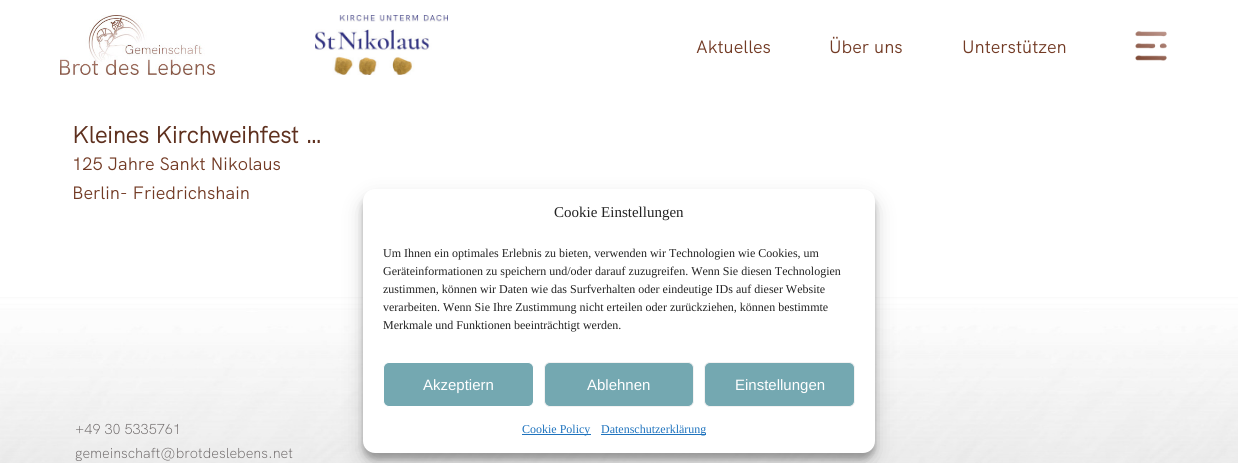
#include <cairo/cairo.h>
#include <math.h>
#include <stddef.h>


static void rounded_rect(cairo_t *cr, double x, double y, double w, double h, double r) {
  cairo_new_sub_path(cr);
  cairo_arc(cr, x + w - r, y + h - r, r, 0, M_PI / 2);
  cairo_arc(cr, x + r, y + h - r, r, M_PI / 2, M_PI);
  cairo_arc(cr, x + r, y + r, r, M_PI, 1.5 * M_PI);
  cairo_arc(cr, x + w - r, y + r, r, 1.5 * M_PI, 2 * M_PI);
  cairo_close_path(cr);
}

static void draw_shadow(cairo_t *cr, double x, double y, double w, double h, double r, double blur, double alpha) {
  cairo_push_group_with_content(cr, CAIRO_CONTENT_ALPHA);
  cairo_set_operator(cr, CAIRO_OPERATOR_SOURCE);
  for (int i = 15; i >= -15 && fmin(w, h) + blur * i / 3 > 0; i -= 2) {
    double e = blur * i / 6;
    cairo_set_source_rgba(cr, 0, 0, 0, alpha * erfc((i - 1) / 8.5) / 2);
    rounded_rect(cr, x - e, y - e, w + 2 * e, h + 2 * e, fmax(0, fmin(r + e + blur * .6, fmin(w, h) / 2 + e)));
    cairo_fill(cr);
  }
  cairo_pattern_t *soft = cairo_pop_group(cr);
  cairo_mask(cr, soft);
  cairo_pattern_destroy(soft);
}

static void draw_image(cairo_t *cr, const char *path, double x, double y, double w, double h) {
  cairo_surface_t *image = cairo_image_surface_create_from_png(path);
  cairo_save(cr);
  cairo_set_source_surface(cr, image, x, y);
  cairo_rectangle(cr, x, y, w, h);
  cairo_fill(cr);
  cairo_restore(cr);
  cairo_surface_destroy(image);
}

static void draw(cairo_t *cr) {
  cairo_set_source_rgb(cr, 1, 1, 1);
  cairo_paint(cr);
  draw_image(cr, "images/1.png", 60, 15, 155, 60);
  draw_image(cr, "images/2.png", 315, 15, 133, 60);
  draw_image(cr, "images/3.png", 1135, 31, 32, 30);
  draw_image(cr, "images/4.png", 0, 297, 1238, 166);
  cairo_set_source_rgb(cr, 0, 0, 0);
  draw_shadow(cr, 363, 195, 512, 264, 12, 3, 0.23);
  draw_shadow(cr, 363, 199, 512, 264, 12, 10, 0.19);
  cairo_set_source_rgb(cr, 1, 1, 1);
  rounded_rect(cr, 363, 189, 512, 264, 12);
  cairo_fill(cr);
  cairo_set_source_rgb(cr, 116 / 255.0, 168 / 255.0, 177 / 255.0);
  rounded_rect(cr, 383.5, 362.5, 150, 44, 5.5);
  cairo_fill_preserve(cr);
  cairo_set_source_rgb(cr, 1, 1, 1);
  cairo_set_line_width(cr, 1);
  cairo_stroke(cr);
  cairo_set_source_rgb(cr, 116 / 255.0, 168 / 255.0, 177 / 255.0);
  rounded_rect(cr, 544.5, 362.5, 149, 44, 5.5);
  cairo_fill_preserve(cr);
  cairo_set_source_rgb(cr, 242 / 255.0, 242 / 255.0, 242 / 255.0);
  cairo_stroke(cr);
  cairo_set_source_rgb(cr, 116 / 255.0, 168 / 255.0, 177 / 255.0);
  rounded_rect(cr, 704.5, 362.5, 150, 44, 5.5);
  cairo_fill_preserve(cr);
  cairo_set_source_rgb(cr, 242 / 255.0, 242 / 255.0, 242 / 255.0);
  cairo_stroke(cr);
  cairo_set_source_rgb(cr, 30 / 255.0, 115 / 255.0, 190 / 255.0);
  cairo_rectangle(cr, 522, 434, 69, 1);
  cairo_fill(cr);
  cairo_rectangle(cr, 601, 434, 105, 1);
  cairo_fill(cr);
  cairo_select_font_face(cr, "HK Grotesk", CAIRO_FONT_SLANT_NORMAL, CAIRO_FONT_WEIGHT_NORMAL);
  cairo_set_font_size(cr, 18);
  cairo_set_source_rgb(cr, 114 / 255.0, 58 / 255.0, 36 / 255.0);
  cairo_move_to(cr, 696, 53);
  cairo_show_text(cr, "Aktuelles");
  cairo_move_to(cr, 829, 53);
  cairo_show_text(cr, "Über uns");
  cairo_move_to(cr, 962, 53);
  cairo_show_text(cr, "Unterstützen");
  cairo_select_font_face(cr, "HK Grotesk", CAIRO_FONT_SLANT_NORMAL, CAIRO_FONT_WEIGHT_BOLD);
  cairo_set_font_size(cr, 23.4);
  cairo_set_source_rgb(cr, 94 / 255.0, 48 / 255.0, 30 / 255.0);
  cairo_move_to(cr, 72, 143);
  cairo_show_text(cr, "Kleines Kirchweihfest …");
  cairo_select_font_face(cr, "HK Grotesk", CAIRO_FONT_SLANT_NORMAL, CAIRO_FONT_WEIGHT_NORMAL);
  cairo_set_font_size(cr, 18);
  cairo_set_source_rgb(cr, 114 / 255.0, 58 / 255.0, 36 / 255.0);
  cairo_move_to(cr, 72, 170);
  cairo_show_text(cr, "125 Jahre Sankt Nikolaus");
  cairo_move_to(cr, 72, 199);
  cairo_show_text(cr, "Berlin- Friedrichshain");
  cairo_select_font_face(cr, "Liberation Serif", CAIRO_FONT_SLANT_NORMAL, CAIRO_FONT_WEIGHT_NORMAL);
  cairo_set_font_size(cr, 15);
  cairo_set_source_rgb(cr, 34 / 255.0, 34 / 255.0, 34 / 255.0);
  cairo_move_to(cr, 554, 217);
  cairo_show_text(cr, "Cookie Einstellungen");
  cairo_set_font_size(cr, 12);
  cairo_move_to(cr, 383, 257);
  cairo_show_text(cr, "Um Ihnen ein optimales Erlebnis zu bieten, verwenden wir Technologien wie Cookies, um");
  cairo_move_to(cr, 383, 275);
  cairo_show_text(cr, "Geräteinformationen zu speichern und/oder darauf zuzugreifen. Wenn Sie diesen Technologien");
  cairo_move_to(cr, 383, 293);
  cairo_show_text(cr, "zustimmen, können wir Daten wie das Surfverhalten oder eindeutige IDs auf dieser Website");
  cairo_move_to(cr, 383, 311);
  cairo_show_text(cr, "verarbeiten. Wenn Sie Ihre Zustimmung nicht erteilen oder zurückziehen, können bestimmte");
  cairo_move_to(cr, 383, 329);
  cairo_show_text(cr, "Merkmale und Funktionen beeinträchtigt werden.");
  cairo_select_font_face(cr, "Liberation Sans", CAIRO_FONT_SLANT_NORMAL, CAIRO_FONT_WEIGHT_NORMAL);
  cairo_set_font_size(cr, 15);
  cairo_set_source_rgb(cr, 1, 1, 1);
  cairo_move_to(cr, 423, 390);
  cairo_show_text(cr, "Akzeptiern");
  cairo_move_to(cr, 587, 390);
  cairo_show_text(cr, "Ablehnen");
  cairo_move_to(cr, 735, 390);
  cairo_show_text(cr, "Einstellungen");
  cairo_select_font_face(cr, "Liberation Serif", CAIRO_FONT_SLANT_NORMAL, CAIRO_FONT_WEIGHT_NORMAL);
  cairo_set_font_size(cr, 12);
  cairo_set_source_rgb(cr, 30 / 255.0, 115 / 255.0, 190 / 255.0);
  cairo_move_to(cr, 522, 433);
  cairo_show_text(cr, "Cookie Policy");
  cairo_move_to(cr, 601, 433);
  cairo_show_text(cr, "Datenschutzerklärung");
  cairo_select_font_face(cr, "HK Grotesk Light", CAIRO_FONT_SLANT_NORMAL, CAIRO_FONT_WEIGHT_NORMAL);
  cairo_set_font_size(cr, 14.4);
  cairo_set_source_rgb(cr, 107 / 255.0, 102 / 255.0, 102 / 255.0);
  cairo_move_to(cr, 75, 434);
  cairo_show_text(cr, "+49 30 5335761");
  cairo_move_to(cr, 75, 458);
  cairo_show_text(cr, "gemeinschaft@brotdeslebens.net");
}

int main(void) {
  cairo_surface_t *surface = cairo_image_surface_create(CAIRO_FORMAT_RGB24, 1238, 463);
  cairo_t *cr = cairo_create(surface);
  cairo_font_options_t *options = cairo_font_options_create();
  cairo_font_options_set_hint_metrics(options, CAIRO_HINT_METRICS_OFF);
  cairo_font_options_set_hint_style(options, CAIRO_HINT_STYLE_NONE);
  cairo_set_font_options(cr, options);
  cairo_set_miter_limit(cr, 4);
  draw(cr);
  cairo_surface_write_to_png(surface, "out.png");
  cairo_font_options_destroy(options);
  cairo_destroy(cr);
  cairo_surface_destroy(surface);
  return 0;
}
